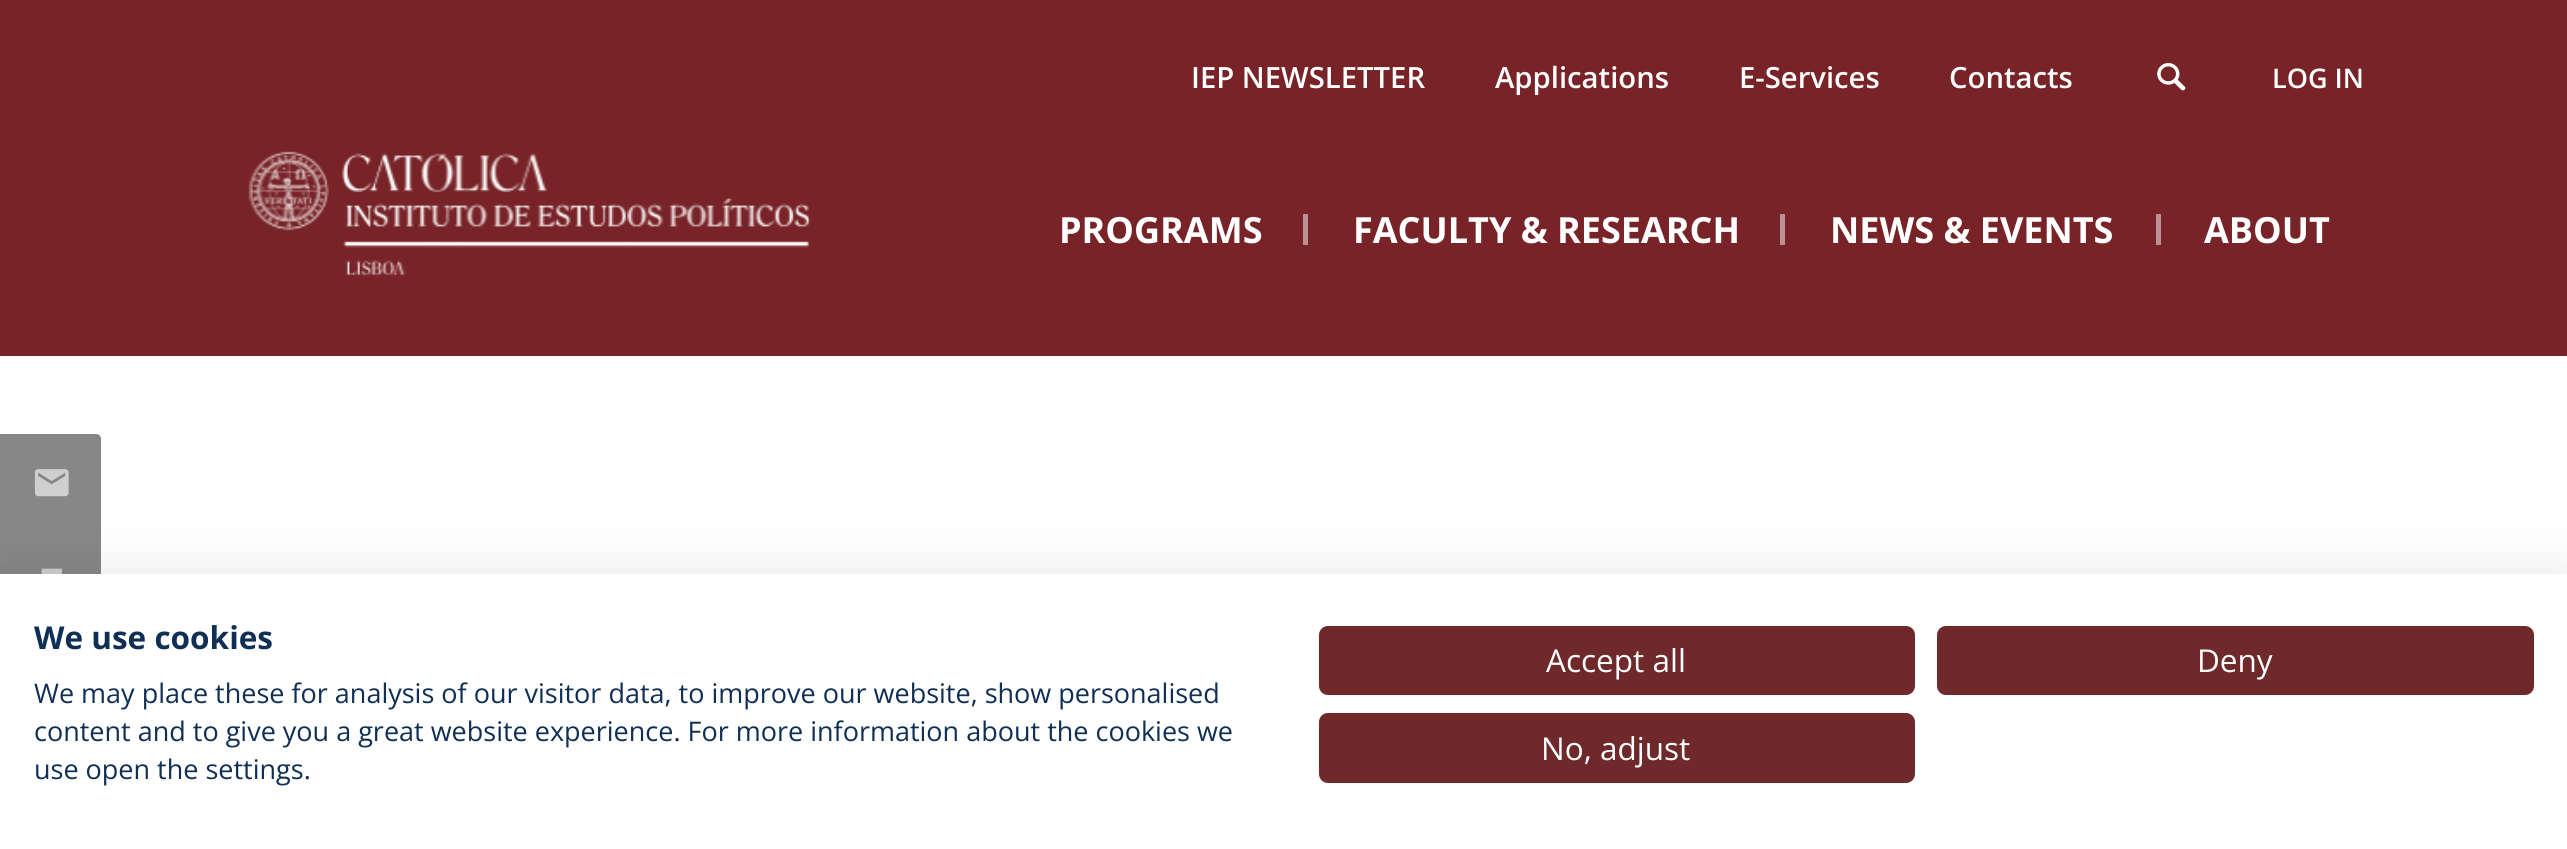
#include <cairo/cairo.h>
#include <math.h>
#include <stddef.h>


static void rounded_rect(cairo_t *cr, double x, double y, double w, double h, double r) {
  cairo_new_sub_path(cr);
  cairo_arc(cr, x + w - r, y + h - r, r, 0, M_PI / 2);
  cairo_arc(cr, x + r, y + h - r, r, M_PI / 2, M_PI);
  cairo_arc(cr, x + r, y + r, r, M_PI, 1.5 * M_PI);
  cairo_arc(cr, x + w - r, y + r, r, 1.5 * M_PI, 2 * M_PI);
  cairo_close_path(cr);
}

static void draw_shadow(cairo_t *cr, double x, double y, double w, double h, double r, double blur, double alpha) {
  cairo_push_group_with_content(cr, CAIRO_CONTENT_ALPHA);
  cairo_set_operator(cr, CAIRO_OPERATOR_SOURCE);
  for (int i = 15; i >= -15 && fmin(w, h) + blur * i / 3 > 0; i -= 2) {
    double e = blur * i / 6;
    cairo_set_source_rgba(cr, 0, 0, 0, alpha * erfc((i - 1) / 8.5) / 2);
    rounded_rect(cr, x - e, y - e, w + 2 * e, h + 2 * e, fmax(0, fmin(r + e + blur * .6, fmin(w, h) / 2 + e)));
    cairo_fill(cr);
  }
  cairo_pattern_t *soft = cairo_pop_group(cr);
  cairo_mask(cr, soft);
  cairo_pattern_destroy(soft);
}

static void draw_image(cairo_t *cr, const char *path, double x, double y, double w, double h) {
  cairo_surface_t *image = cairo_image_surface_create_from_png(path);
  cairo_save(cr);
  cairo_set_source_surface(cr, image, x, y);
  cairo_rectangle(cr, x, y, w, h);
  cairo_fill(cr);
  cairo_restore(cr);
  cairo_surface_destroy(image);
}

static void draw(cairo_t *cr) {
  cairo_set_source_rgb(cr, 1, 1, 1);
  cairo_paint(cr);
  cairo_set_source_rgb(cr, 120 / 255.0, 35 / 255.0, 39 / 255.0);
  cairo_rectangle(cr, 0, 0, 2567, 356);
  cairo_fill(cr);
  draw_image(cr, "images/1.png", 2157, 63, 29, 28);
  draw_image(cr, "images/2.png", 248, 151, 563, 125);
  cairo_set_source_rgb(cr, 188 / 255.0, 145 / 255.0, 147 / 255.0);
  cairo_rectangle(cr, 1303, 214, 5, 31);
  cairo_fill(cr);
  cairo_rectangle(cr, 1780, 214, 5, 31);
  cairo_fill(cr);
  cairo_rectangle(cr, 2156, 214, 5, 31);
  cairo_fill(cr);
  cairo_set_source_rgb(cr, 135 / 255.0, 135 / 255.0, 135 / 255.0);
  cairo_new_path(cr);
  cairo_move_to(cr, 0, 434);
  cairo_line_to(cr, 96, 434);
  cairo_curve_to(cr, 99, 434, 101, 436, 101, 439);
  cairo_line_to(cr, 101, 536);
  cairo_line_to(cr, 0, 536);
  cairo_close_path(cr);
  cairo_fill(cr);
  draw_image(cr, "images/3.png", 34, 469, 35, 28);
  cairo_rectangle(cr, 0, 536, 101, 38);
  cairo_fill(cr);
  draw_image(cr, "images/4.png", 41, 568, 21, 6);
  cairo_set_source_rgb(cr, 0, 0, 0);
  draw_shadow(cr, 0, 574, 2567, 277, 0, 27, 0.1);
  cairo_set_source_rgb(cr, 1, 1, 1);
  cairo_rectangle(cr, 0, 574, 2567, 275);
  cairo_fill(cr);
  cairo_set_source_rgb(cr, 111 / 255.0, 41 / 255.0, 42 / 255.0);
  rounded_rect(cr, 1320, 627, 594, 67, 8);
  cairo_fill_preserve(cr);
  cairo_stroke(cr);
  rounded_rect(cr, 1938, 627, 595, 67, 8);
  cairo_fill_preserve(cr);
  cairo_stroke(cr);
  rounded_rect(cr, 1320, 714, 594, 68, 8);
  cairo_fill_preserve(cr);
  cairo_stroke(cr);
  cairo_select_font_face(cr, "Open Sans SemiBold", CAIRO_FONT_SLANT_NORMAL, CAIRO_FONT_WEIGHT_NORMAL);
  cairo_set_font_size(cr, 29.25);
  cairo_set_source_rgb(cr, 1, 1, 1);
  cairo_move_to(cr, 1191, 88);
  cairo_show_text(cr, "IEP NEWSLETTER");
  cairo_move_to(cr, 1495, 88);
  cairo_show_text(cr, "Applications");
  cairo_move_to(cr, 1739, 88);
  cairo_show_text(cr, "E-Services");
  cairo_move_to(cr, 1949, 88);
  cairo_show_text(cr, "Contacts");
  cairo_set_font_size(cr, 27);
  cairo_move_to(cr, 2272, 88);
  cairo_show_text(cr, "LOG IN");
  cairo_select_font_face(cr, "Open Sans", CAIRO_FONT_SLANT_NORMAL, CAIRO_FONT_WEIGHT_BOLD);
  cairo_set_font_size(cr, 36);
  cairo_move_to(cr, 1059, 243);
  cairo_show_text(cr, "PROGRAMS");
  cairo_move_to(cr, 1353, 243);
  cairo_show_text(cr, "FACULTY & RESEARCH");
  cairo_move_to(cr, 1830, 243);
  cairo_show_text(cr, "NEWS & EVENTS");
  cairo_move_to(cr, 2204, 243);
  cairo_show_text(cr, "ABOUT");
  cairo_set_font_size(cr, 31.5);
  cairo_set_source_rgb(cr, 16 / 255.0, 47 / 255.0, 86 / 255.0);
  cairo_move_to(cr, 34, 649);
  cairo_show_text(cr, "We use cookies");
  cairo_select_font_face(cr, "Open Sans", CAIRO_FONT_SLANT_NORMAL, CAIRO_FONT_WEIGHT_NORMAL);
  cairo_set_font_size(cr, 27);
  cairo_move_to(cr, 34, 703);
  cairo_show_text(cr, "We may place these for analysis of our visitor data, to improve our website, show personalised");
  cairo_move_to(cr, 34, 741);
  cairo_show_text(cr, "content and to give you a great website experience. For more information about the cookies we");
  cairo_move_to(cr, 34, 779);
  cairo_show_text(cr, "use open the settings.");
  cairo_set_font_size(cr, 31.5);
  cairo_set_source_rgb(cr, 1, 1, 1);
  cairo_move_to(cr, 1546, 672);
  cairo_show_text(cr, "Accept all");
  cairo_move_to(cr, 2197, 672);
  cairo_show_text(cr, "Deny");
  cairo_move_to(cr, 1541, 760);
  cairo_show_text(cr, "No, adjust");
}

int main(void) {
  cairo_surface_t *surface = cairo_image_surface_create(CAIRO_FORMAT_RGB24, 2567, 849);
  cairo_t *cr = cairo_create(surface);
  cairo_font_options_t *options = cairo_font_options_create();
  cairo_font_options_set_hint_metrics(options, CAIRO_HINT_METRICS_OFF);
  cairo_font_options_set_hint_style(options, CAIRO_HINT_STYLE_NONE);
  cairo_set_font_options(cr, options);
  cairo_set_miter_limit(cr, 4);
  draw(cr);
  cairo_surface_write_to_png(surface, "out.png");
  cairo_font_options_destroy(options);
  cairo_destroy(cr);
  cairo_surface_destroy(surface);
  return 0;
}
